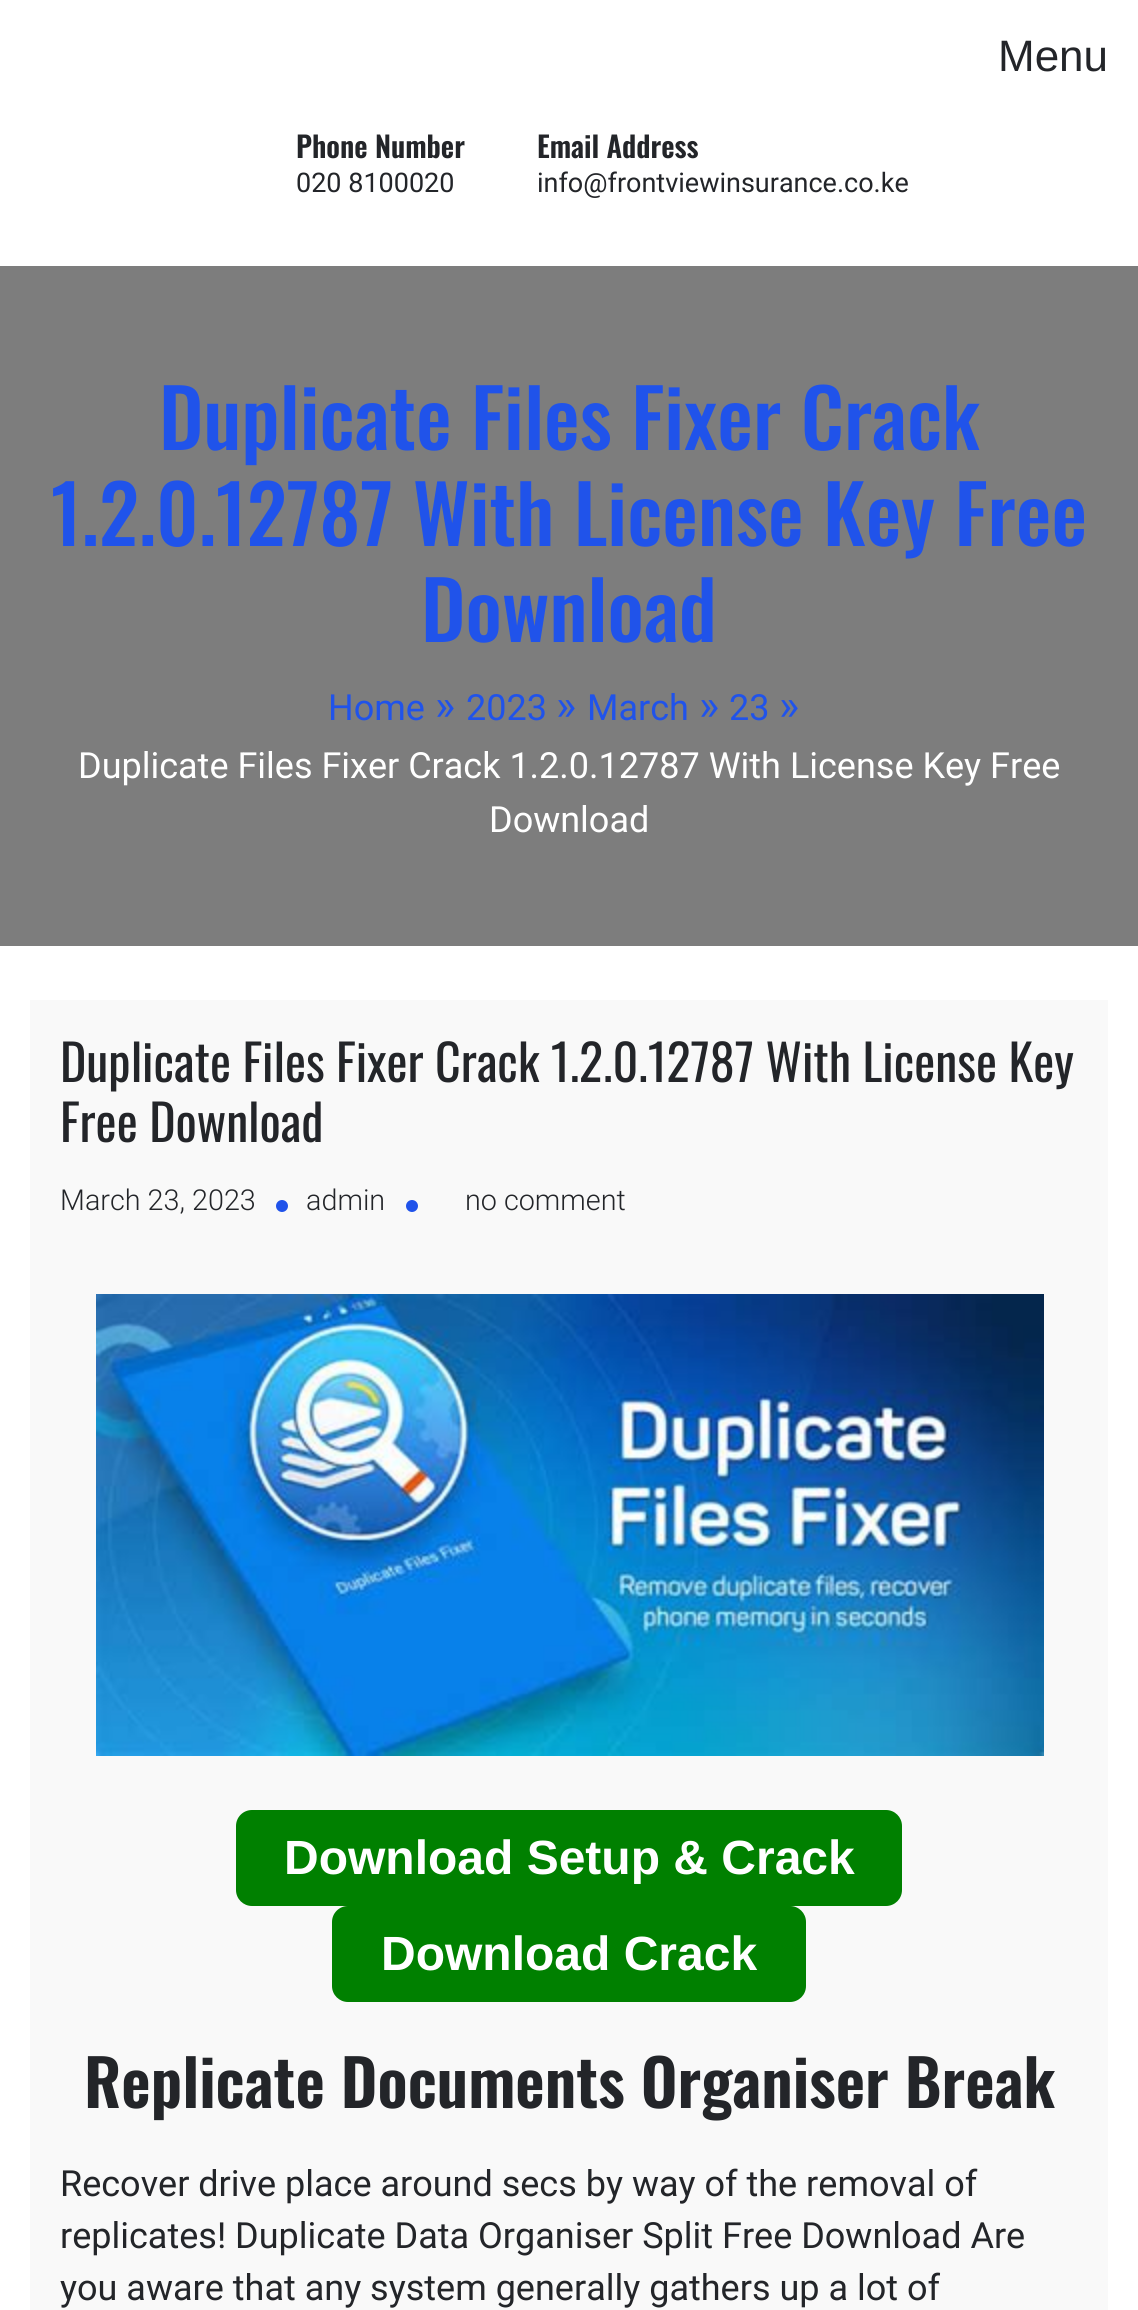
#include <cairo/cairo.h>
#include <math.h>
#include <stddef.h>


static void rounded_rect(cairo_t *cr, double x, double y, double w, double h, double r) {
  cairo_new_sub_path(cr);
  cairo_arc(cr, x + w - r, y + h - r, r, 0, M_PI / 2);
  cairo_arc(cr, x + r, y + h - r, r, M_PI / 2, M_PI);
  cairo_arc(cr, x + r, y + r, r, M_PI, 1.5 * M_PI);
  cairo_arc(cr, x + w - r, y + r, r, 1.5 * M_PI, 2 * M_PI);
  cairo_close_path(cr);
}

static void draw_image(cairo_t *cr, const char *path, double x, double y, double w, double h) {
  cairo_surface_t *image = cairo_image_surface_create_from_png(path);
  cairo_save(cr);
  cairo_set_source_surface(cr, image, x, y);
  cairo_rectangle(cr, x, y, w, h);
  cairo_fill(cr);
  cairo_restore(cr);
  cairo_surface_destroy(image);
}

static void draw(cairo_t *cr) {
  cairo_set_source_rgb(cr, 1, 1, 1);
  cairo_paint(cr);
  cairo_set_source_rgb(cr, 125 / 255.0, 125 / 255.0, 125 / 255.0);
  cairo_rectangle(cr, 0, 266, 1138, 680);
  cairo_fill(cr);
  cairo_set_source_rgb(cr, 249 / 255.0, 249 / 255.0, 249 / 255.0);
  cairo_rectangle(cr, 30, 1000, 1078, 1310);
  cairo_fill(cr);
  cairo_set_source_rgb(cr, 32 / 255.0, 83 / 255.0, 234 / 255.0);
  cairo_arc(cr, 282, 1206, 6, 0, 2 * M_PI);
  cairo_fill(cr);
  cairo_arc(cr, 412, 1206, 6, 0, 2 * M_PI);
  cairo_fill(cr);
  draw_image(cr, "images/1.png", 96, 1294, 948, 462);
  cairo_set_source_rgb(cr, 0, 128 / 255.0, 0);
  rounded_rect(cr, 236, 1810, 666, 96, 16);
  cairo_fill(cr);
  rounded_rect(cr, 332, 1906, 474, 96, 16);
  cairo_fill(cr);
  cairo_select_font_face(cr, "Liberation Sans", CAIRO_FONT_SLANT_NORMAL, CAIRO_FONT_WEIGHT_NORMAL);
  cairo_set_font_size(cr, 44);
  cairo_set_source_rgb(cr, 35 / 255.0, 37 / 255.0, 41 / 255.0);
  cairo_move_to(cr, 998, 71);
  cairo_show_text(cr, "Menu");
  cairo_select_font_face(cr, "Oswald SemiBold", CAIRO_FONT_SLANT_NORMAL, CAIRO_FONT_WEIGHT_NORMAL);
  cairo_set_font_size(cr, 29);
  cairo_move_to(cr, 296, 158);
  cairo_show_text(cr, "Phone Number");
  cairo_select_font_face(cr, "Roboto", CAIRO_FONT_SLANT_NORMAL, CAIRO_FONT_WEIGHT_NORMAL);
  cairo_set_font_size(cr, 27);
  cairo_move_to(cr, 296, 192);
  cairo_show_text(cr, "020 8100020");
  cairo_select_font_face(cr, "Oswald SemiBold", CAIRO_FONT_SLANT_NORMAL, CAIRO_FONT_WEIGHT_NORMAL);
  cairo_set_font_size(cr, 29);
  cairo_move_to(cr, 537, 158);
  cairo_show_text(cr, "Email Address");
  cairo_select_font_face(cr, "Roboto", CAIRO_FONT_SLANT_NORMAL, CAIRO_FONT_WEIGHT_NORMAL);
  cairo_set_font_size(cr, 27);
  cairo_move_to(cr, 537, 192);
  cairo_show_text(cr, "info@frontviewinsurance.co.ke");
  cairo_select_font_face(cr, "Oswald Medium", CAIRO_FONT_SLANT_NORMAL, CAIRO_FONT_WEIGHT_NORMAL);
  cairo_set_font_size(cr, 80);
  cairo_set_source_rgb(cr, 32 / 255.0, 83 / 255.0, 234 / 255.0);
  cairo_move_to(cr, 159, 450);
  cairo_show_text(cr, "Duplicate Files Fixer Crack");
  cairo_move_to(cr, 51, 546);
  cairo_show_text(cr, "1.2.0.12787 With License Key Free");
  cairo_move_to(cr, 421, 642);
  cairo_show_text(cr, "Download");
  cairo_select_font_face(cr, "Roboto", CAIRO_FONT_SLANT_NORMAL, CAIRO_FONT_WEIGHT_NORMAL);
  cairo_set_font_size(cr, 36);
  cairo_move_to(cr, 328, 720);
  cairo_show_text(cr, "Home");
  cairo_set_font_size(cr, 43);
  cairo_move_to(cr, 435, 720);
  cairo_show_text(cr, "»");
  cairo_set_font_size(cr, 36);
  cairo_move_to(cr, 466, 720);
  cairo_show_text(cr, "2023");
  cairo_set_font_size(cr, 43);
  cairo_move_to(cr, 556, 720);
  cairo_show_text(cr, "»");
  cairo_set_font_size(cr, 36);
  cairo_move_to(cr, 587, 720);
  cairo_show_text(cr, "March");
  cairo_set_font_size(cr, 43);
  cairo_move_to(cr, 699, 720);
  cairo_show_text(cr, "»");
  cairo_set_font_size(cr, 36);
  cairo_move_to(cr, 729, 720);
  cairo_show_text(cr, "23");
  cairo_set_font_size(cr, 43);
  cairo_move_to(cr, 779, 720);
  cairo_show_text(cr, "»");
  cairo_set_font_size(cr, 36);
  cairo_set_source_rgb(cr, 1, 1, 1);
  cairo_move_to(cr, 78, 778);
  cairo_show_text(cr, "Duplicate Files Fixer Crack 1.2.0.12787 With License Key Free");
  cairo_move_to(cr, 489, 832);
  cairo_show_text(cr, "Download");
  cairo_select_font_face(cr, "Oswald", CAIRO_FONT_SLANT_NORMAL, CAIRO_FONT_WEIGHT_NORMAL);
  cairo_set_font_size(cr, 50);
  cairo_set_source_rgb(cr, 35 / 255.0, 37 / 255.0, 41 / 255.0);
  cairo_move_to(cr, 60, 1082);
  cairo_show_text(cr, "Duplicate Files Fixer Crack 1.2.0.12787 With License Key");
  cairo_move_to(cr, 60, 1142);
  cairo_show_text(cr, "Free Download");
  cairo_select_font_face(cr, "Roboto Light", CAIRO_FONT_SLANT_NORMAL, CAIRO_FONT_WEIGHT_NORMAL);
  cairo_set_font_size(cr, 28.75);
  cairo_move_to(cr, 60, 1210);
  cairo_show_text(cr, "March 23, 2023");
  cairo_move_to(cr, 306, 1210);
  cairo_show_text(cr, "admin");
  cairo_move_to(cr, 465, 1210);
  cairo_show_text(cr, "no comment");
  cairo_select_font_face(cr, "Liberation Sans", CAIRO_FONT_SLANT_NORMAL, CAIRO_FONT_WEIGHT_BOLD);
  cairo_set_font_size(cr, 48);
  cairo_set_source_rgb(cr, 1, 1, 1);
  cairo_move_to(cr, 284, 1874);
  cairo_show_text(cr, "Download Setup & Crack");
  cairo_move_to(cr, 381, 1970);
  cairo_show_text(cr, "Download Crack");
  cairo_select_font_face(cr, "Oswald SemiBold", CAIRO_FONT_SLANT_NORMAL, CAIRO_FONT_WEIGHT_NORMAL);
  cairo_set_font_size(cr, 64);
  cairo_set_source_rgb(cr, 35 / 255.0, 37 / 255.0, 41 / 255.0);
  cairo_move_to(cr, 84, 2108);
  cairo_show_text(cr, "Replicate Documents Organiser Break");
  cairo_select_font_face(cr, "Roboto", CAIRO_FONT_SLANT_NORMAL, CAIRO_FONT_WEIGHT_NORMAL);
  cairo_set_font_size(cr, 36);
  cairo_move_to(cr, 60, 2196);
  cairo_show_text(cr, "Recover drive place around secs by way of the removal of");
  cairo_move_to(cr, 60, 2248);
  cairo_show_text(cr, "replicates! Duplicate Data Organiser Split Free Download Are");
  cairo_move_to(cr, 60, 2300);
  cairo_show_text(cr, "you aware that any system generally gathers up a lot of");
}

int main(void) {
  cairo_surface_t *surface = cairo_image_surface_create(CAIRO_FORMAT_RGB24, 1138, 2310);
  cairo_t *cr = cairo_create(surface);
  cairo_font_options_t *options = cairo_font_options_create();
  cairo_font_options_set_hint_metrics(options, CAIRO_HINT_METRICS_OFF);
  cairo_font_options_set_hint_style(options, CAIRO_HINT_STYLE_NONE);
  cairo_set_font_options(cr, options);
  cairo_set_miter_limit(cr, 4);
  draw(cr);
  cairo_surface_write_to_png(surface, "out.png");
  cairo_font_options_destroy(options);
  cairo_destroy(cr);
  cairo_surface_destroy(surface);
  return 0;
}
